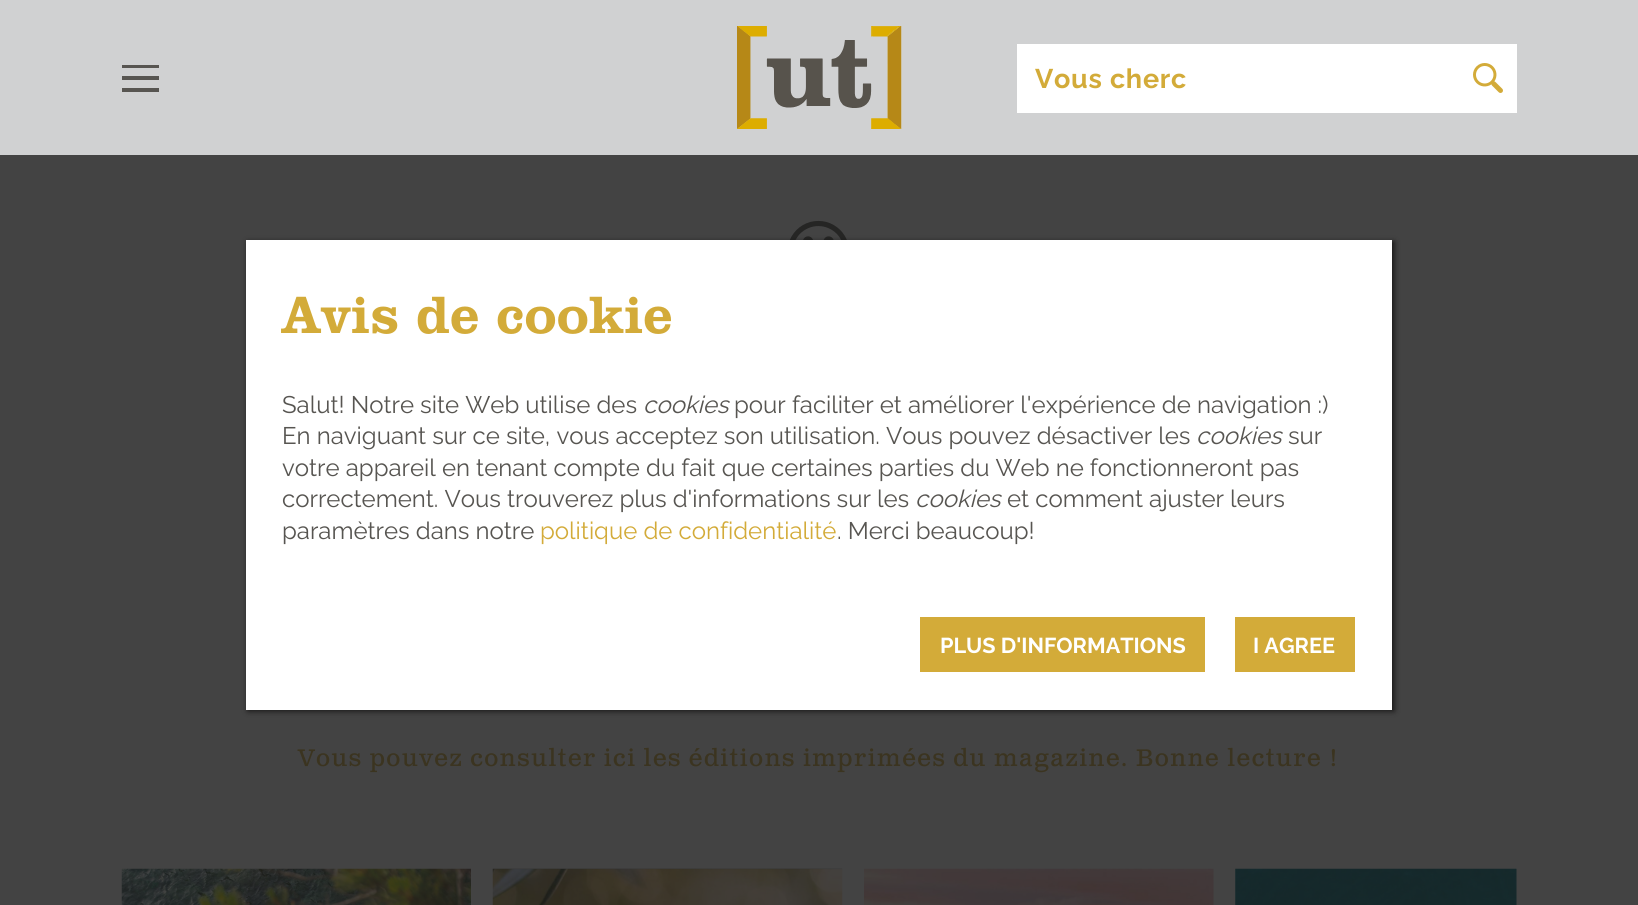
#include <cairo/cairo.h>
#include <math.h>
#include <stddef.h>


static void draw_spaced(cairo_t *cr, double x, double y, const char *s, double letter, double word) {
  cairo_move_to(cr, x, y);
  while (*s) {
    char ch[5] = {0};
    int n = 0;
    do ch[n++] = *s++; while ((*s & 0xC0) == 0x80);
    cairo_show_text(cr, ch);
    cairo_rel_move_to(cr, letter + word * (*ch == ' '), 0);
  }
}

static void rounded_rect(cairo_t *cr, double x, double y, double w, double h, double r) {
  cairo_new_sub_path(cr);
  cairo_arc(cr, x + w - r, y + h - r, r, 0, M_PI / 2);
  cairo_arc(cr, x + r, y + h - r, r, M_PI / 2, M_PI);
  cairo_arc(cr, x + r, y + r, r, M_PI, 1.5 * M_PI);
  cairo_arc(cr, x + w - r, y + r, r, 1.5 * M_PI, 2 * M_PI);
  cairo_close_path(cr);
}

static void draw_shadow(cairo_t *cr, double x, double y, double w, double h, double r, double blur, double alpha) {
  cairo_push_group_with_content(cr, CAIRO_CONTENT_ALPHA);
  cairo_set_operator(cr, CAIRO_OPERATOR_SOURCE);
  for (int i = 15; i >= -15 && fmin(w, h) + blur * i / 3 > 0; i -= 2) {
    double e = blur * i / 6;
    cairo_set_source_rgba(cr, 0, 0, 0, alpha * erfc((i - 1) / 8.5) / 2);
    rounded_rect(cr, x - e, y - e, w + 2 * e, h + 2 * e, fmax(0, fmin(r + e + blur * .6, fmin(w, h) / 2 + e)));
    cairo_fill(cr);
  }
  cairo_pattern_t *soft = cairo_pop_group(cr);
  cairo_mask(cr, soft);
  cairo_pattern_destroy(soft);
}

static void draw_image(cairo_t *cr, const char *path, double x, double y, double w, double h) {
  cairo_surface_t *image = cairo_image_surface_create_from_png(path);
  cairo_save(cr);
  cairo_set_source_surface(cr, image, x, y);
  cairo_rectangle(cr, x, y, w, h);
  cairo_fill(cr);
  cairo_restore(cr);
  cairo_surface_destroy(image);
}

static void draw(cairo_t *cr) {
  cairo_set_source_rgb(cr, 67 / 255.0, 67 / 255.0, 67 / 255.0);
  cairo_paint(cr);
  cairo_set_source_rgb(cr, 208 / 255.0, 209 / 255.0, 210 / 255.0);
  cairo_rectangle(cr, 0, 0, 1638, 155);
  cairo_fill(cr);
  cairo_set_source_rgb(cr, 87 / 255.0, 85 / 255.0, 81 / 255.0);
  cairo_rectangle(cr, 122, 65, 37, 3);
  cairo_fill(cr);
  cairo_rectangle(cr, 122, 76, 37, 4);
  cairo_fill(cr);
  cairo_rectangle(cr, 122, 88, 37, 4);
  cairo_fill(cr);
  draw_image(cr, "images/1.png", 737, 26, 165, 103);
  cairo_set_source_rgb(cr, 1, 1, 1);
  cairo_rectangle(cr, 1017, 44, 500, 69);
  cairo_fill(cr);
  draw_image(cr, "images/2.png", 1473, 63, 30, 30);
  draw_image(cr, "images/3.png", 789, 220, 58, 20);
  cairo_set_source_rgb(cr, 20 / 255.0, 19 / 255.0, 19 / 255.0);
  draw_shadow(cr, 248, 242, 1146, 469, 0, 3, 1);
  cairo_set_source_rgb(cr, 1, 1, 1);
  cairo_rectangle(cr, 246, 240, 1146, 470);
  cairo_fill(cr);
  cairo_set_source_rgb(cr, 211 / 255.0, 171 / 255.0, 57 / 255.0);
  cairo_rectangle(cr, 920, 617, 285, 55);
  cairo_fill(cr);
  cairo_rectangle(cr, 1235, 617, 120, 55);
  cairo_fill(cr);
  draw_image(cr, "images/4.png", 121, 868, 350, 37);
  draw_image(cr, "images/5.png", 492, 868, 351, 37);
  draw_image(cr, "images/6.png", 864, 868, 350, 37);
  draw_image(cr, "images/7.png", 1235, 868, 282, 37);
  cairo_select_font_face(cr, "Raleway", CAIRO_FONT_SLANT_NORMAL, CAIRO_FONT_WEIGHT_BOLD);
  cairo_set_font_size(cr, 27);
  draw_spaced(cr, 1035, 88, "Vous cherc", 0.75, 0);
  cairo_select_font_face(cr, "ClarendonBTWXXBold", CAIRO_FONT_SLANT_NORMAL, CAIRO_FONT_WEIGHT_NORMAL);
  cairo_set_font_size(cr, 54);
  cairo_move_to(cr, 282, 333);
  cairo_show_text(cr, "Avis de cookie");
  cairo_select_font_face(cr, "Raleway", CAIRO_FONT_SLANT_NORMAL, CAIRO_FONT_WEIGHT_NORMAL);
  cairo_set_font_size(cr, 24);
  cairo_set_source_rgb(cr, 87 / 255.0, 85 / 255.0, 81 / 255.0);
  cairo_move_to(cr, 282, 413);
  cairo_show_text(cr, "Salut! Notre site Web utilise des");
  cairo_select_font_face(cr, "Raleway", CAIRO_FONT_SLANT_ITALIC, CAIRO_FONT_WEIGHT_NORMAL);
  cairo_move_to(cr, 643, 413);
  cairo_show_text(cr, "cookies");
  cairo_select_font_face(cr, "Raleway", CAIRO_FONT_SLANT_NORMAL, CAIRO_FONT_WEIGHT_NORMAL);
  cairo_move_to(cr, 734, 413);
  cairo_show_text(cr, "pour faciliter et améliorer l'expérience de navigation :)");
  cairo_move_to(cr, 282, 444);
  cairo_show_text(cr, "En naviguant sur ce site, vous acceptez son utilisation. Vous pouvez désactiver les");
  cairo_select_font_face(cr, "Raleway", CAIRO_FONT_SLANT_ITALIC, CAIRO_FONT_WEIGHT_NORMAL);
  cairo_move_to(cr, 1196, 444);
  cairo_show_text(cr, "cookies");
  cairo_select_font_face(cr, "Raleway", CAIRO_FONT_SLANT_NORMAL, CAIRO_FONT_WEIGHT_NORMAL);
  cairo_move_to(cr, 1288, 444);
  cairo_show_text(cr, "sur");
  cairo_move_to(cr, 282, 476);
  cairo_show_text(cr, "votre appareil en tenant compte du fait que certaines parties du Web ne fonctionneront pas");
  cairo_move_to(cr, 282, 507);
  cairo_show_text(cr, "correctement. Vous trouverez plus d'informations sur les");
  cairo_select_font_face(cr, "Raleway", CAIRO_FONT_SLANT_ITALIC, CAIRO_FONT_WEIGHT_NORMAL);
  cairo_move_to(cr, 915, 507);
  cairo_show_text(cr, "cookies");
  cairo_select_font_face(cr, "Raleway", CAIRO_FONT_SLANT_NORMAL, CAIRO_FONT_WEIGHT_NORMAL);
  cairo_move_to(cr, 1007, 507);
  cairo_show_text(cr, "et comment ajuster leurs");
  cairo_move_to(cr, 282, 539);
  cairo_show_text(cr, "paramètres dans notre");
  cairo_set_source_rgb(cr, 211 / 255.0, 171 / 255.0, 57 / 255.0);
  cairo_move_to(cr, 540, 539);
  cairo_show_text(cr, "politique de confidentialité");
  cairo_set_source_rgb(cr, 87 / 255.0, 85 / 255.0, 81 / 255.0);
  cairo_move_to(cr, 837, 539);
  cairo_show_text(cr, ". Merci beaucoup!");
  cairo_select_font_face(cr, "Raleway", CAIRO_FONT_SLANT_NORMAL, CAIRO_FONT_WEIGHT_BOLD);
  cairo_set_font_size(cr, 21.6);
  cairo_set_source_rgb(cr, 1, 1, 1);
  cairo_move_to(cr, 940, 653);
  cairo_show_text(cr, "PLUS D'INFORMATIONS");
  cairo_move_to(cr, 1253, 653);
  cairo_show_text(cr, "I AGREE");
  cairo_select_font_face(cr, "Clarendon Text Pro", CAIRO_FONT_SLANT_NORMAL, CAIRO_FONT_WEIGHT_NORMAL);
  cairo_set_font_size(cr, 24);
  cairo_set_source_rgb(cr, 59 / 255.0, 52 / 255.0, 32 / 255.0);
  draw_spaced(cr, 298, 766, "Vous pouvez consulter ici les éditions imprimées du magazine. Bonne lecture !", 1.5, 0);
}

int main(void) {
  cairo_surface_t *surface = cairo_image_surface_create(CAIRO_FORMAT_RGB24, 1638, 905);
  cairo_t *cr = cairo_create(surface);
  cairo_font_options_t *options = cairo_font_options_create();
  cairo_font_options_set_hint_metrics(options, CAIRO_HINT_METRICS_OFF);
  cairo_font_options_set_hint_style(options, CAIRO_HINT_STYLE_NONE);
  cairo_set_font_options(cr, options);
  cairo_set_miter_limit(cr, 4);
  draw(cr);
  cairo_surface_write_to_png(surface, "out.png");
  cairo_font_options_destroy(options);
  cairo_destroy(cr);
  cairo_surface_destroy(surface);
  return 0;
}
